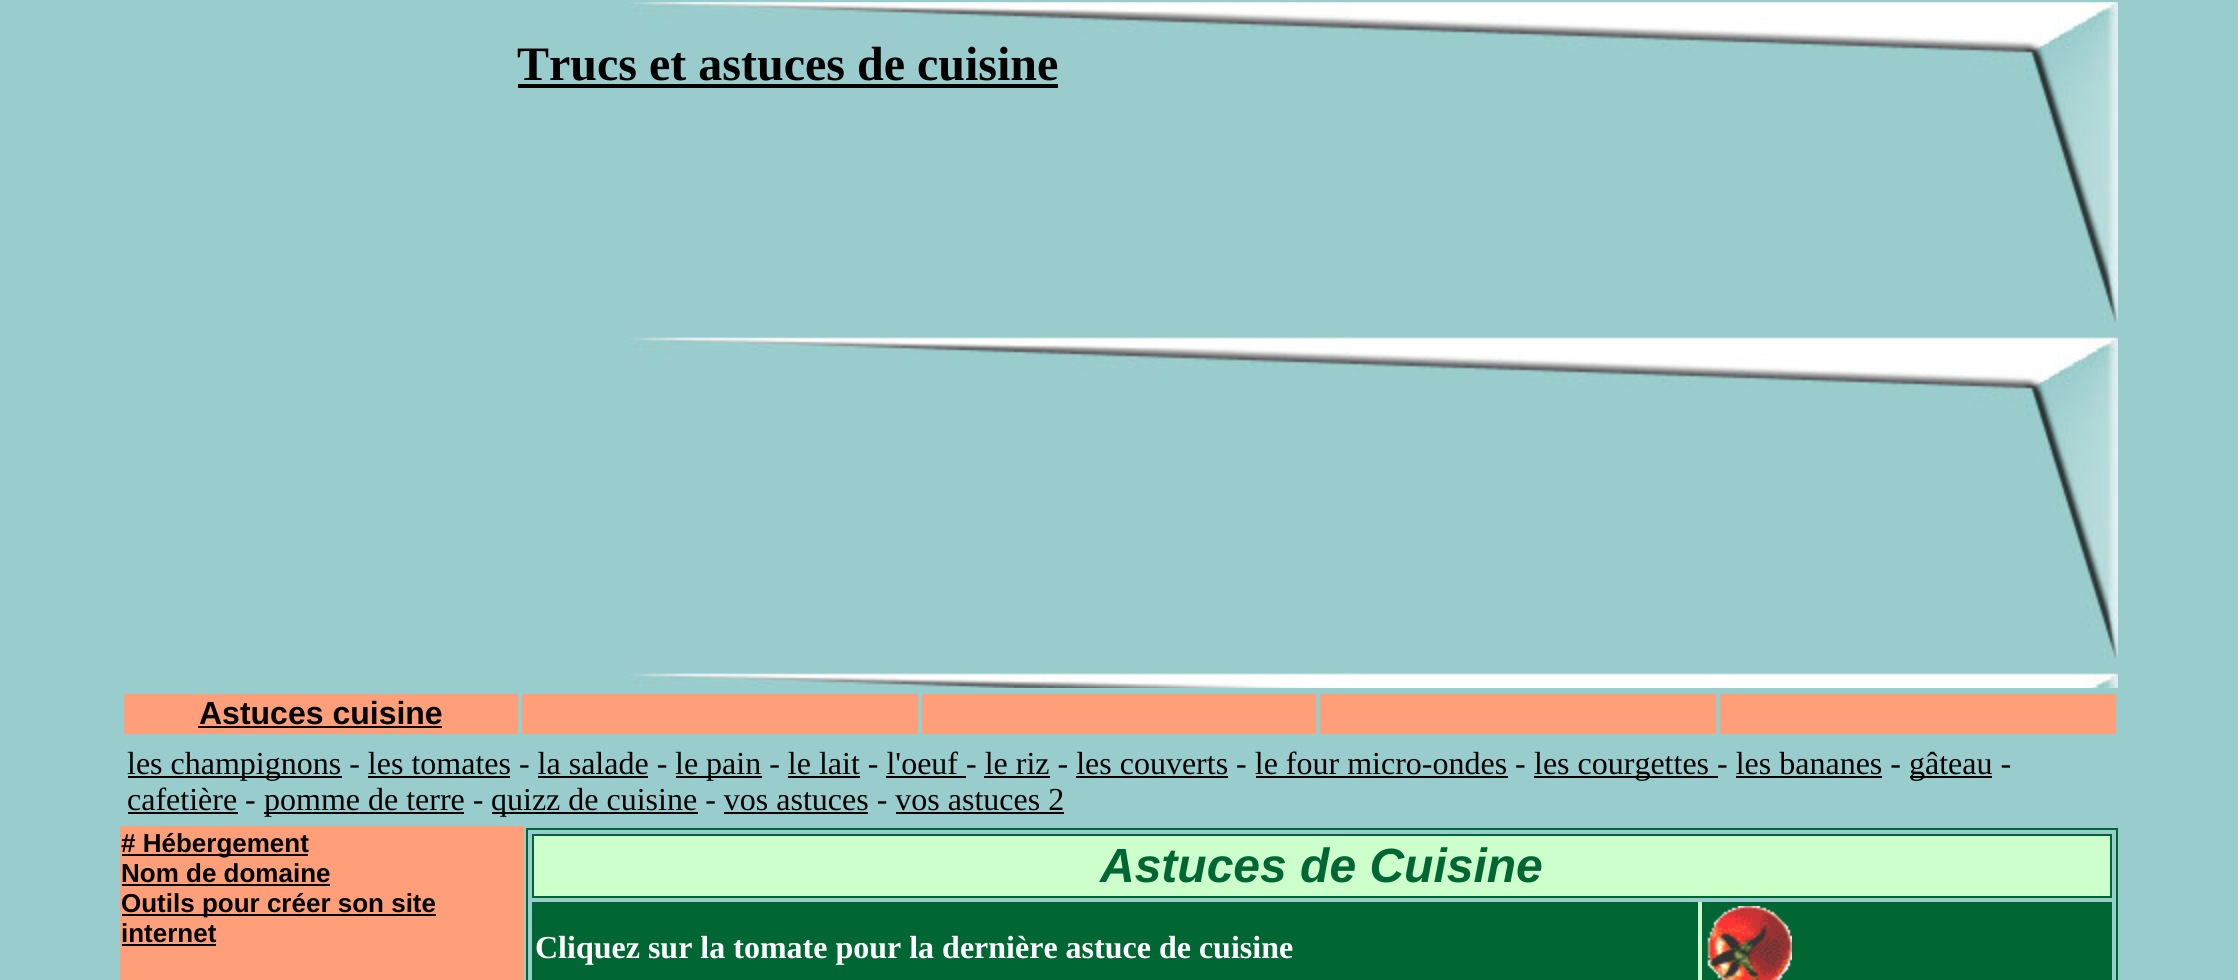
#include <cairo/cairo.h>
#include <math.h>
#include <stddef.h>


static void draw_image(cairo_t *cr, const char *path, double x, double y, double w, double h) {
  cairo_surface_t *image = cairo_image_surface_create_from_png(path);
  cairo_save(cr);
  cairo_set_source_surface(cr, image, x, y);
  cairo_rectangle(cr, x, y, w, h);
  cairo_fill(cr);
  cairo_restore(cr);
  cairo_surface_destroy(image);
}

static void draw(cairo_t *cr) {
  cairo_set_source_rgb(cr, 153 / 255.0, 204 / 255.0, 204 / 255.0);
  cairo_paint(cr);
  draw_image(cr, "images/1.png", 630, 2, 1488, 686);
  cairo_set_source_rgb(cr, 0, 0, 0);
  cairo_rectangle(cr, 518, 84, 540, 4);
  cairo_fill(cr);
  cairo_set_source_rgb(cr, 1, 159 / 255.0, 121 / 255.0);
  cairo_rectangle(cr, 124, 694, 1992, 40);
  cairo_fill(cr);
  cairo_rectangle(cr, 123, 693, 396, 42);
  cairo_set_source_rgb(cr, 153 / 255.0, 204 / 255.0, 204 / 255.0);
  cairo_stroke(cr);
  cairo_set_source_rgb(cr, 0, 0, 0);
  cairo_rectangle(cr, 198, 726, 244, 2);
  cairo_fill(cr);
  cairo_rectangle(cr, 521, 693, 398, 42);
  cairo_set_source_rgb(cr, 153 / 255.0, 204 / 255.0, 204 / 255.0);
  cairo_stroke(cr);
  cairo_rectangle(cr, 921, 693, 396, 42);
  cairo_stroke(cr);
  cairo_rectangle(cr, 1319, 693, 398, 42);
  cairo_stroke(cr);
  cairo_rectangle(cr, 1719, 693, 398, 42);
  cairo_stroke(cr);
  cairo_set_source_rgb(cr, 0, 0, 0);
  cairo_rectangle(cr, 128, 776, 214, 2);
  cairo_fill(cr);
  cairo_rectangle(cr, 676, 776, 86, 2);
  cairo_fill(cr);
  cairo_rectangle(cr, 1534, 776, 184, 2);
  cairo_fill(cr);
  cairo_rectangle(cr, 1910, 776, 82, 2);
  cairo_fill(cr);
  cairo_rectangle(cr, 368, 776, 142, 2);
  cairo_fill(cr);
  cairo_rectangle(cr, 538, 776, 110, 2);
  cairo_fill(cr);
  cairo_rectangle(cr, 788, 776, 72, 2);
  cairo_fill(cr);
  cairo_rectangle(cr, 886, 776, 80, 2);
  cairo_fill(cr);
  cairo_rectangle(cr, 984, 776, 66, 2);
  cairo_fill(cr);
  cairo_rectangle(cr, 1076, 776, 152, 2);
  cairo_fill(cr);
  cairo_rectangle(cr, 1256, 776, 252, 2);
  cairo_fill(cr);
  cairo_rectangle(cr, 1736, 776, 146, 2);
  cairo_fill(cr);
  cairo_rectangle(cr, 128, 812, 110, 2);
  cairo_fill(cr);
  cairo_rectangle(cr, 264, 812, 200, 2);
  cairo_fill(cr);
  cairo_rectangle(cr, 492, 812, 206, 2);
  cairo_fill(cr);
  cairo_rectangle(cr, 724, 812, 144, 2);
  cairo_fill(cr);
  cairo_rectangle(cr, 896, 812, 168, 2);
  cairo_fill(cr);
  cairo_set_source_rgb(cr, 1, 159 / 255.0, 121 / 255.0);
  cairo_rectangle(cr, 120, 826, 404, 154);
  cairo_fill(cr);
  cairo_set_source_rgb(cr, 0, 0, 0);
  cairo_rectangle(cr, 122, 854, 186, 2);
  cairo_fill(cr);
  cairo_rectangle(cr, 122, 884, 208, 2);
  cairo_fill(cr);
  cairo_rectangle(cr, 122, 914, 314, 2);
  cairo_fill(cr);
  cairo_rectangle(cr, 122, 944, 94, 2);
  cairo_fill(cr);
  cairo_rectangle(cr, 527, 829, 1590, 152);
  cairo_set_source_rgb(cr, 0, 102 / 255.0, 51 / 255.0);
  cairo_stroke(cr);
  cairo_set_source_rgb(cr, 204 / 255.0, 1, 204 / 255.0);
  cairo_rectangle(cr, 533, 835, 1578, 62);
  cairo_fill_preserve(cr);
  cairo_set_source_rgb(cr, 0, 102 / 255.0, 51 / 255.0);
  cairo_stroke(cr);
  cairo_set_source_rgb(cr, 204 / 255.0, 1, 204 / 255.0);
  cairo_rectangle(cr, 1698, 902, 4, 78);
  cairo_fill(cr);
  cairo_set_source_rgb(cr, 0, 102 / 255.0, 51 / 255.0);
  cairo_rectangle(cr, 532, 902, 1166, 78);
  cairo_fill(cr);
  cairo_rectangle(cr, 1702, 902, 410, 78);
  cairo_fill(cr);
  draw_image(cr, "images/2.png", 1707, 906, 85, 74);
  cairo_select_font_face(cr, "Liberation Serif", CAIRO_FONT_SLANT_NORMAL, CAIRO_FONT_WEIGHT_BOLD);
  cairo_set_font_size(cr, 48);
  cairo_set_source_rgb(cr, 0, 0, 0);
  cairo_move_to(cr, 517, 80);
  cairo_show_text(cr, "Trucs et astuces de cuisine");
  cairo_select_font_face(cr, "Liberation Sans", CAIRO_FONT_SLANT_NORMAL, CAIRO_FONT_WEIGHT_BOLD);
  cairo_set_font_size(cr, 32);
  cairo_move_to(cr, 199, 724);
  cairo_show_text(cr, "Astuces cuisine");
  cairo_select_font_face(cr, "Liberation Serif", CAIRO_FONT_SLANT_NORMAL, CAIRO_FONT_WEIGHT_NORMAL);
  cairo_move_to(cr, 127, 774);
  cairo_show_text(cr, "les champignons - les tomates - la salade -");
  cairo_move_to(cr, 675, 774);
  cairo_show_text(cr, "le pain - le lait - l'oeuf - le riz - les couverts - le four micro-ondes -");
  cairo_move_to(cr, 1534, 774);
  cairo_show_text(cr, "les courgettes - les bananes -");
  cairo_move_to(cr, 1909, 774);
  cairo_show_text(cr, "gâteau -");
  cairo_move_to(cr, 127, 810);
  cairo_show_text(cr, "cafetière -");
  cairo_move_to(cr, 264, 810);
  cairo_show_text(cr, "pomme de terre -");
  cairo_move_to(cr, 491, 810);
  cairo_show_text(cr, "quizz de cuisine - vos astuces - vos astuces 2");
  cairo_select_font_face(cr, "Liberation Sans", CAIRO_FONT_SLANT_NORMAL, CAIRO_FONT_WEIGHT_BOLD);
  cairo_set_font_size(cr, 26);
  cairo_move_to(cr, 121, 852);
  cairo_show_text(cr, "# Hébergement");
  cairo_move_to(cr, 121, 882);
  cairo_show_text(cr, "Nom de domaine");
  cairo_move_to(cr, 121, 912);
  cairo_show_text(cr, "Outils pour créer son site");
  cairo_move_to(cr, 121, 942);
  cairo_show_text(cr, "internet");
  cairo_select_font_face(cr, "Liberation Sans", CAIRO_FONT_SLANT_ITALIC, CAIRO_FONT_WEIGHT_BOLD);
  cairo_set_font_size(cr, 48);
  cairo_set_source_rgb(cr, 0, 102 / 255.0, 51 / 255.0);
  cairo_move_to(cr, 1100, 882);
  cairo_show_text(cr, "Astuces de Cuisine");
  cairo_select_font_face(cr, "Liberation Serif", CAIRO_FONT_SLANT_NORMAL, CAIRO_FONT_WEIGHT_BOLD);
  cairo_set_font_size(cr, 32);
  cairo_set_source_rgb(cr, 1, 1, 1);
  cairo_move_to(cr, 535, 958);
  cairo_show_text(cr, "Cliquez sur la tomate pour la dernière astuce de cuisine");
}

int main(void) {
  cairo_surface_t *surface = cairo_image_surface_create(CAIRO_FORMAT_RGB24, 2238, 980);
  cairo_t *cr = cairo_create(surface);
  cairo_font_options_t *options = cairo_font_options_create();
  cairo_font_options_set_hint_metrics(options, CAIRO_HINT_METRICS_OFF);
  cairo_font_options_set_hint_style(options, CAIRO_HINT_STYLE_NONE);
  cairo_set_font_options(cr, options);
  cairo_set_miter_limit(cr, 4);
  draw(cr);
  cairo_surface_write_to_png(surface, "out.png");
  cairo_font_options_destroy(options);
  cairo_destroy(cr);
  cairo_surface_destroy(surface);
  return 0;
}
